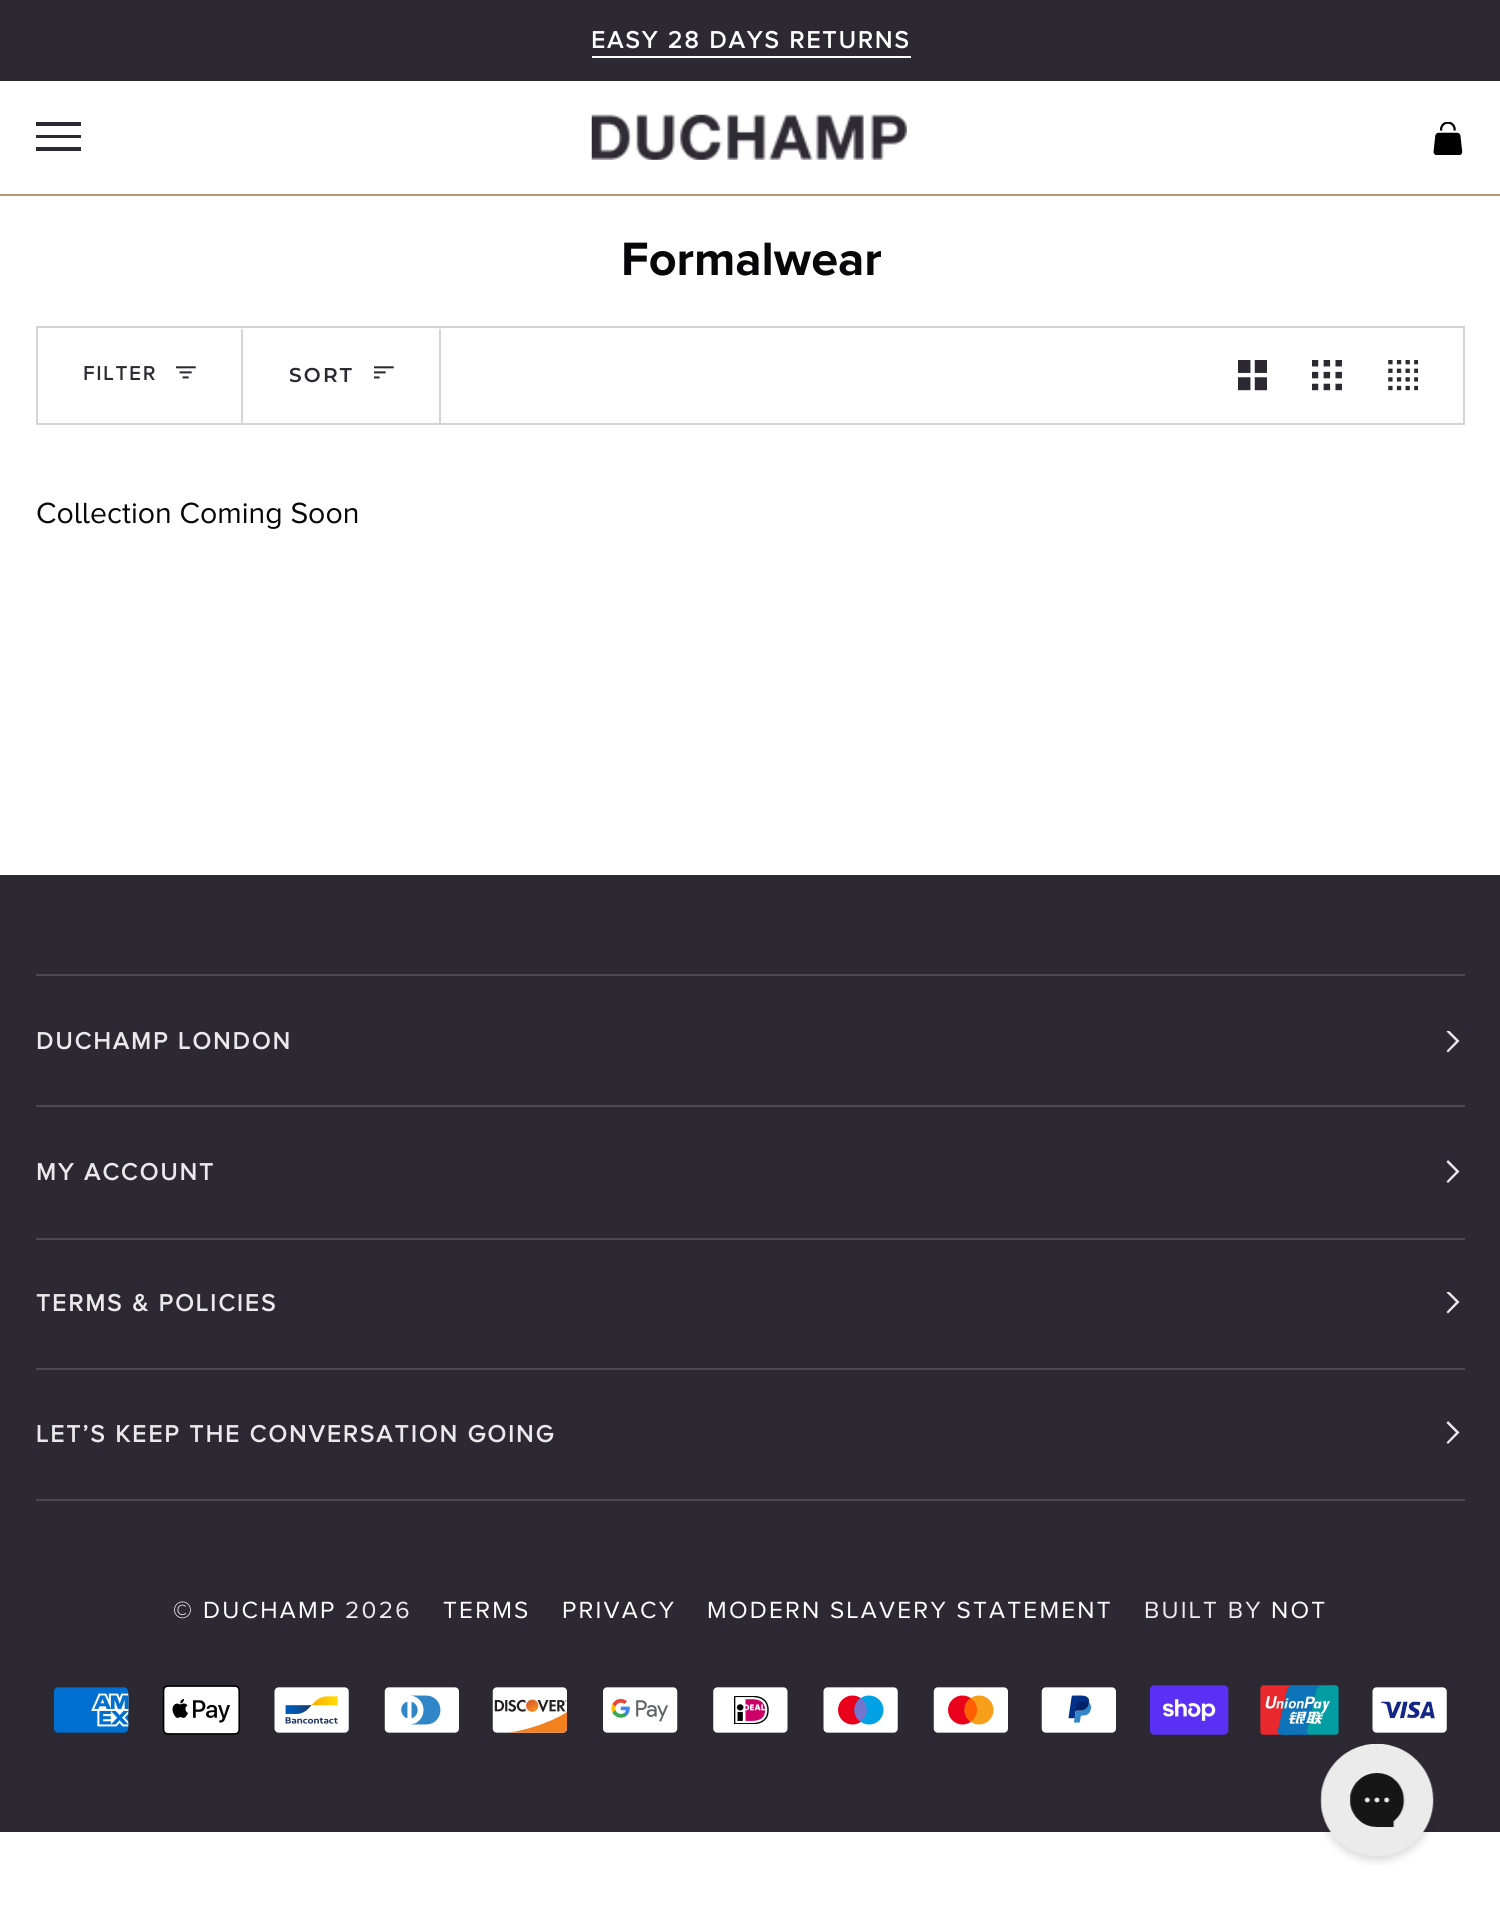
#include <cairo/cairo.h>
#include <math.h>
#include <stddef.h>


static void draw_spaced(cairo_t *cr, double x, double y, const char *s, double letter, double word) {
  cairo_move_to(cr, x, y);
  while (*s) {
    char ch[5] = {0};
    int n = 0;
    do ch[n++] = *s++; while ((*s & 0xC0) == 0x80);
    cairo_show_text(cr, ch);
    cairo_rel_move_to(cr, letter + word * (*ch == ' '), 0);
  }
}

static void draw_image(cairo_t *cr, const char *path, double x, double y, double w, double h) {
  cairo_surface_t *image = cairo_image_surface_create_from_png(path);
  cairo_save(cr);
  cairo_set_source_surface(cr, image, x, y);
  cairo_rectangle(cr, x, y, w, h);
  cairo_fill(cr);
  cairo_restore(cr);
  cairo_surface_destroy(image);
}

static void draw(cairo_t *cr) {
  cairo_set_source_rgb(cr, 1, 1, 1);
  cairo_paint(cr);
  cairo_set_source_rgb(cr, 45 / 255.0, 41 / 255.0, 51 / 255.0);
  cairo_rectangle(cr, 0, 0, 1500, 81);
  cairo_fill(cr);
  cairo_set_source_rgb(cr, 1, 1, 1);
  cairo_rectangle(cr, 592, 56, 319, 2);
  cairo_fill(cr);
  cairo_set_source_rgb(cr, 179 / 255.0, 152 / 255.0, 114 / 255.0);
  cairo_rectangle(cr, 0, 194, 1500, 2);
  cairo_fill(cr);
  cairo_set_source_rgb(cr, 45 / 255.0, 41 / 255.0, 51 / 255.0);
  cairo_new_path(cr);
  cairo_move_to(cr, 36, 122);
  cairo_line_to(cr, 81, 122);
  cairo_line_to(cr, 81, 126);
  cairo_line_to(cr, 36, 126);
  cairo_close_path(cr);
  cairo_move_to(cr, 36, 135);
  cairo_line_to(cr, 81, 135);
  cairo_line_to(cr, 81, 138);
  cairo_line_to(cr, 36, 138);
  cairo_close_path(cr);
  cairo_move_to(cr, 36, 147);
  cairo_line_to(cr, 81, 147);
  cairo_line_to(cr, 81, 151);
  cairo_line_to(cr, 36, 151);
  cairo_close_path(cr);
  cairo_fill(cr);
  draw_image(cr, "images/1.png", 591, 114, 316, 46);
  draw_image(cr, "images/2.png", 1433, 122, 30, 33);
  cairo_rectangle(cr, 37, 327, 1427, 97);
  cairo_set_source_rgb(cr, 213 / 255.0, 212 / 255.0, 214 / 255.0);
  cairo_stroke(cr);
  cairo_rectangle(cr, 241, 329, 2, 94);
  cairo_fill(cr);
  draw_image(cr, "images/3.png", 176, 366, 20, 13);
  cairo_rectangle(cr, 439, 329, 2, 94);
  cairo_fill(cr);
  draw_image(cr, "images/4.png", 374, 366, 20, 13);
  draw_image(cr, "images/5.png", 1238, 360, 29, 31);
  draw_image(cr, "images/6.png", 1312, 360, 30, 31);
  draw_image(cr, "images/7.png", 1388, 360, 30, 31);
  cairo_set_source_rgb(cr, 45 / 255.0, 41 / 255.0, 51 / 255.0);
  cairo_rectangle(cr, 0, 875, 1500, 957);
  cairo_fill(cr);
  cairo_set_source_rgb(cr, 77 / 255.0, 73 / 255.0, 82 / 255.0);
  cairo_rectangle(cr, 36, 974, 1429, 2);
  cairo_fill(cr);
  cairo_rectangle(cr, 36, 1105, 1429, 2);
  cairo_fill(cr);
  cairo_save(cr);
  cairo_rectangle(cr, 1440, 1031, 25, 22);
  cairo_clip(cr);
  cairo_set_source_rgb(cr, 234 / 255.0, 234 / 255.0, 235 / 255.0);
  cairo_set_fill_rule(cr, CAIRO_FILL_RULE_EVEN_ODD);
  cairo_new_path(cr);
  cairo_move_to(cr, 1456, 1041);
  cairo_line_to(cr, 1446.5, 1031.5);
  cairo_line_to(cr, 1448, 1029.5);
  cairo_line_to(cr, 1459.5, 1041);
  cairo_line_to(cr, 1448, 1052.5);
  cairo_line_to(cr, 1446.5, 1051);
  cairo_close_path(cr);
  cairo_fill(cr);
  cairo_restore(cr);
  cairo_rectangle(cr, 36, 1238, 1429, 2);
  cairo_fill(cr);
  cairo_set_source_rgb(cr, 234 / 255.0, 234 / 255.0, 235 / 255.0);
  cairo_set_fill_rule(cr, CAIRO_FILL_RULE_EVEN_ODD);
  cairo_new_path(cr);
  cairo_move_to(cr, 1456, 1171.5);
  cairo_line_to(cr, 1446.5, 1162);
  cairo_line_to(cr, 1448, 1160);
  cairo_line_to(cr, 1459.5, 1171.5);
  cairo_line_to(cr, 1448, 1183);
  cairo_line_to(cr, 1446.5, 1181.5);
  cairo_close_path(cr);
  cairo_fill(cr);
  cairo_set_source_rgb(cr, 77 / 255.0, 73 / 255.0, 82 / 255.0);
  cairo_rectangle(cr, 36, 1368, 1429, 2);
  cairo_fill(cr);
  cairo_save(cr);
  cairo_set_fill_rule(cr, CAIRO_FILL_RULE_WINDING);
  cairo_rectangle(cr, 1440, 1292, 25, 24);
  cairo_clip(cr);
  cairo_set_source_rgb(cr, 234 / 255.0, 234 / 255.0, 235 / 255.0);
  cairo_set_fill_rule(cr, CAIRO_FILL_RULE_EVEN_ODD);
  cairo_new_path(cr);
  cairo_move_to(cr, 1456, 1302);
  cairo_line_to(cr, 1446.5, 1292.5);
  cairo_line_to(cr, 1448, 1290.5);
  cairo_line_to(cr, 1459.5, 1302);
  cairo_line_to(cr, 1448, 1313.5);
  cairo_line_to(cr, 1446.5, 1312);
  cairo_close_path(cr);
  cairo_fill(cr);
  cairo_restore(cr);
  cairo_rectangle(cr, 36, 1499, 1429, 2);
  cairo_fill(cr);
  cairo_set_source_rgb(cr, 234 / 255.0, 234 / 255.0, 235 / 255.0);
  cairo_new_path(cr);
  cairo_move_to(cr, 1456, 1432.5);
  cairo_line_to(cr, 1446.5, 1423);
  cairo_line_to(cr, 1448, 1421);
  cairo_line_to(cr, 1459.5, 1432.5);
  cairo_line_to(cr, 1448, 1444);
  cairo_line_to(cr, 1446.5, 1442.5);
  cairo_close_path(cr);
  cairo_fill(cr);
  draw_image(cr, "images/8.png", 54, 1687, 75, 46);
  draw_image(cr, "images/9.png", 162, 1685, 78, 50);
  draw_image(cr, "images/10.png", 274, 1687, 75, 46);
  draw_image(cr, "images/11.png", 384, 1687, 75, 46);
  draw_image(cr, "images/12.png", 492, 1687, 76, 46);
  draw_image(cr, "images/13.png", 603, 1687, 75, 46);
  draw_image(cr, "images/14.png", 713, 1687, 75, 46);
  draw_image(cr, "images/15.png", 823, 1687, 75, 46);
  draw_image(cr, "images/16.png", 933, 1687, 75, 46);
  draw_image(cr, "images/17.png", 1041, 1687, 75, 46);
  draw_image(cr, "images/18.png", 1150, 1685, 79, 50);
  draw_image(cr, "images/19.png", 1260, 1685, 79, 50);
  draw_image(cr, "images/20.png", 1372, 1687, 75, 46);
  draw_image(cr, "images/21.png", 1320, 1743, 114, 122);
  cairo_select_font_face(cr, "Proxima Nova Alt", CAIRO_FONT_SLANT_NORMAL, CAIRO_FONT_WEIGHT_BOLD);
  cairo_set_font_size(cr, 24.3);
  cairo_set_source_rgb(cr, 1, 1, 1);
  draw_spaced(cr, 591, 48, "EASY 28 DAYS RETURNS", 2.25, 0);
  cairo_select_font_face(cr, "Proxima Nova", CAIRO_FONT_SLANT_NORMAL, CAIRO_FONT_WEIGHT_BOLD);
  cairo_set_font_size(cr, 48.5);
  cairo_set_source_rgb(cr, 7 / 255.0, 6 / 255.0, 9 / 255.0);
  cairo_move_to(cr, 621, 275);
  cairo_show_text(cr, "Formalwear");
  cairo_select_font_face(cr, "Proxima Nova Alt", CAIRO_FONT_SLANT_NORMAL, CAIRO_FONT_WEIGHT_BOLD);
  cairo_set_font_size(cr, 20);
  cairo_set_source_rgb(cr, 45 / 255.0, 41 / 255.0, 51 / 255.0);
  draw_spaced(cr, 83, 380, "FILTER", 2.25, 0);
  cairo_select_font_face(cr, "Montserrat SemiBold", CAIRO_FONT_SLANT_NORMAL, CAIRO_FONT_WEIGHT_NORMAL);
  draw_spaced(cr, 289, 382, "SORT", 2.25, 0);
  cairo_select_font_face(cr, "Proxima Nova Alt", CAIRO_FONT_SLANT_NORMAL, CAIRO_FONT_WEIGHT_NORMAL);
  cairo_set_font_size(cr, 30.25);
  cairo_set_source_rgb(cr, 7 / 255.0, 6 / 255.0, 9 / 255.0);
  cairo_move_to(cr, 36, 523);
  cairo_show_text(cr, "Collection Coming Soon");
  cairo_select_font_face(cr, "Proxima Nova Alt", CAIRO_FONT_SLANT_NORMAL, CAIRO_FONT_WEIGHT_BOLD);
  cairo_set_font_size(cr, 24.3);
  cairo_set_source_rgb(cr, 234 / 255.0, 234 / 255.0, 235 / 255.0);
  draw_spaced(cr, 36, 1049, "DUCHAMP LONDON", 2.25, 0);
  draw_spaced(cr, 36, 1180, "MY ACCOUNT", 2.25, 0);
  draw_spaced(cr, 36, 1311, "TERMS & POLICIES", 2.25, 0);
  draw_spaced(cr, 36, 1442, "LET’S KEEP THE CONVERSATION GOING", 2.25, 0);
  cairo_select_font_face(cr, "Proxima Nova Alt", CAIRO_FONT_SLANT_NORMAL, CAIRO_FONT_WEIGHT_NORMAL);
  draw_spaced(cr, 173, 1618, "©", 2.25, 0);
  cairo_set_source_rgb(cr, 1, 1, 1);
  draw_spaced(cr, 203, 1618, "DUCHAMP", 2.25, 0);
  cairo_set_source_rgb(cr, 234 / 255.0, 234 / 255.0, 235 / 255.0);
  draw_spaced(cr, 345, 1618, "2026", 2.25, 0);
  cairo_set_source_rgb(cr, 1, 1, 1);
  draw_spaced(cr, 443, 1618, "TERMS", 2.25, 0);
  draw_spaced(cr, 562, 1618, "PRIVACY", 2.25, 0);
  draw_spaced(cr, 707, 1618, "MODERN SLAVERY STATEMENT", 2.25, 0);
  cairo_set_source_rgb(cr, 234 / 255.0, 234 / 255.0, 235 / 255.0);
  draw_spaced(cr, 1144, 1618, "BUILT BY", 2.25, 0);
  cairo_set_source_rgb(cr, 1, 1, 1);
  draw_spaced(cr, 1271, 1618, "NOT", 2.25, 0);
}

int main(void) {
  cairo_surface_t *surface = cairo_image_surface_create(CAIRO_FORMAT_RGB24, 1500, 1916);
  cairo_t *cr = cairo_create(surface);
  cairo_font_options_t *options = cairo_font_options_create();
  cairo_font_options_set_hint_metrics(options, CAIRO_HINT_METRICS_OFF);
  cairo_font_options_set_hint_style(options, CAIRO_HINT_STYLE_NONE);
  cairo_set_font_options(cr, options);
  cairo_set_miter_limit(cr, 4);
  draw(cr);
  cairo_surface_write_to_png(surface, "out.png");
  cairo_font_options_destroy(options);
  cairo_destroy(cr);
  cairo_surface_destroy(surface);
  return 0;
}
